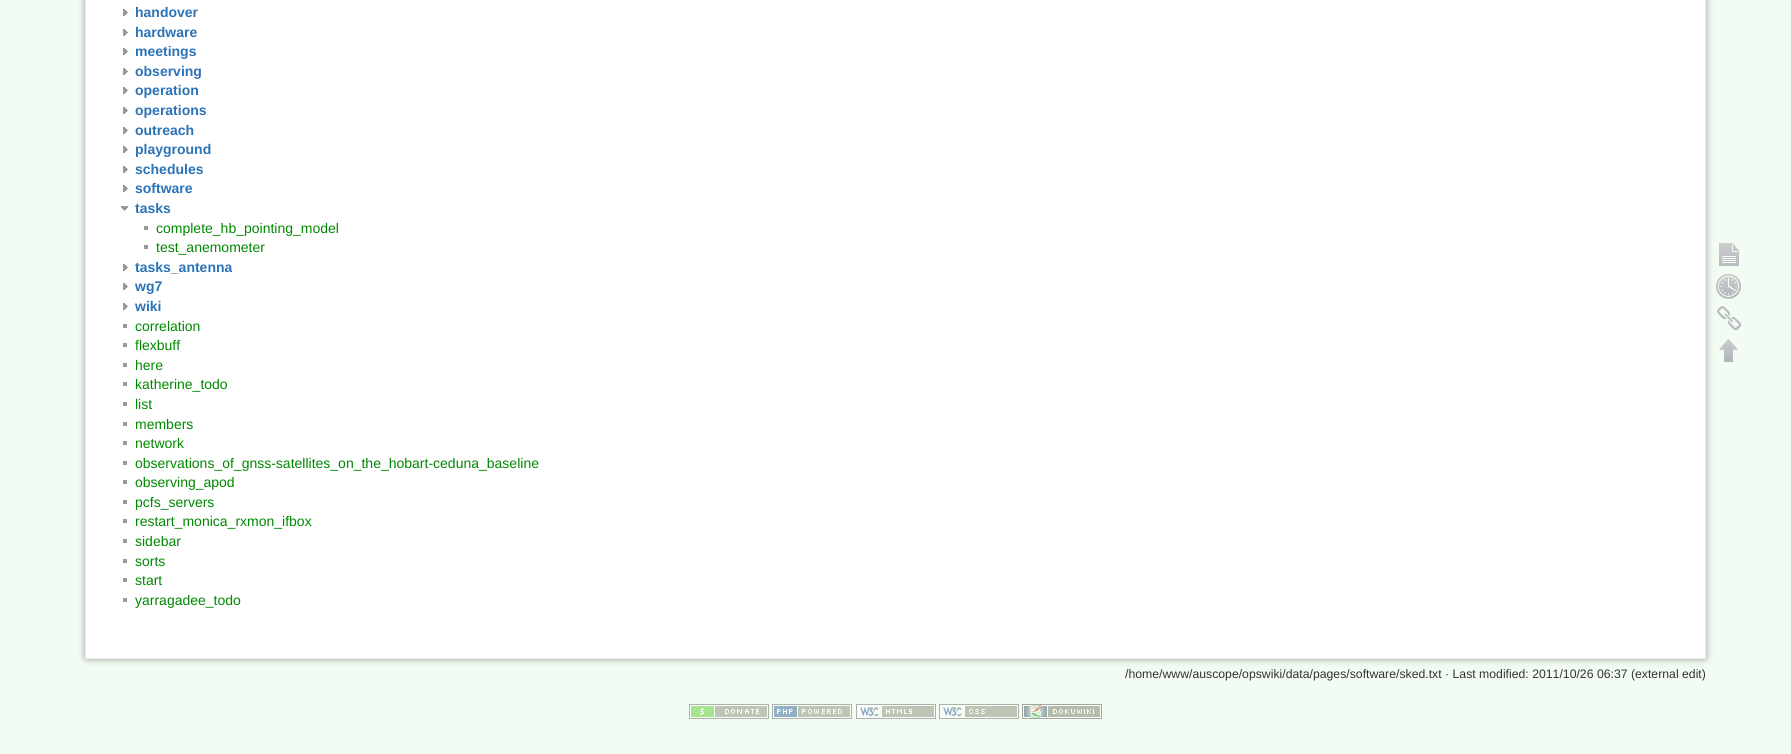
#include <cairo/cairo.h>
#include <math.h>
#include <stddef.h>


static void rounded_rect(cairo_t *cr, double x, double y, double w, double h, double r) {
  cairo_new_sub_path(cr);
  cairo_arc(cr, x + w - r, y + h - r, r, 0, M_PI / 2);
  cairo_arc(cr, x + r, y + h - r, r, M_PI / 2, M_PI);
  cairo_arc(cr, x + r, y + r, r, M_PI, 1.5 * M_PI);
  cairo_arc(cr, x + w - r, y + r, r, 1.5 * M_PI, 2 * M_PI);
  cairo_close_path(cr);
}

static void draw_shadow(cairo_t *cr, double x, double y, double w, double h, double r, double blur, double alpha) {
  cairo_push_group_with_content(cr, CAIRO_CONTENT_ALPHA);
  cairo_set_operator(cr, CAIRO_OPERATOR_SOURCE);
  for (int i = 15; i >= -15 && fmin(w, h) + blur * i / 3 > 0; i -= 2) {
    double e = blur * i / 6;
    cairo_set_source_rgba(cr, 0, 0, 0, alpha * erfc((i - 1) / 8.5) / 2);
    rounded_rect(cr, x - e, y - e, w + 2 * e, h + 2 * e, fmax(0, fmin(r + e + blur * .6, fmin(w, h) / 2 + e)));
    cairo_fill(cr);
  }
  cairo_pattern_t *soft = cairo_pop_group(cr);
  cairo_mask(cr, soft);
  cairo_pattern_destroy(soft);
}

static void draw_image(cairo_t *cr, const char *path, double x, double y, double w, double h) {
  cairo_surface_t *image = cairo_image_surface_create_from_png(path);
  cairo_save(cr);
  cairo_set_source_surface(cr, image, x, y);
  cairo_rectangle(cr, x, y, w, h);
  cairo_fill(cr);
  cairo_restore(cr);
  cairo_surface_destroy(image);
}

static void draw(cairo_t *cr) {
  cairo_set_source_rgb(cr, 242 / 255.0, 252 / 255.0, 242 / 255.0);
  cairo_paint(cr);
  cairo_set_source_rgb(cr, 153 / 255.0, 153 / 255.0, 153 / 255.0);
  draw_shadow(cr, 85, -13, 1621, 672, 2, 3.5, 1);
  cairo_set_source_rgb(cr, 1, 1, 1);
  rounded_rect(cr, 85.5, -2.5, 1620, 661, 1.5);
  cairo_fill_preserve(cr);
  cairo_set_source_rgb(cr, 238 / 255.0, 238 / 255.0, 238 / 255.0);
  cairo_set_line_width(cr, 1);
  cairo_stroke(cr);
  draw_image(cr, "images/1.png", 123, 9, 5, 7);
  draw_image(cr, "images/1.png", 123, 29, 5, 7);
  draw_image(cr, "images/1.png", 123, 48, 5, 7);
  draw_image(cr, "images/1.png", 123, 68, 5, 7);
  draw_image(cr, "images/1.png", 123, 87, 5, 7);
  draw_image(cr, "images/1.png", 123, 107, 5, 7);
  draw_image(cr, "images/1.png", 123, 127, 5, 7);
  draw_image(cr, "images/1.png", 123, 146, 5, 7);
  draw_image(cr, "images/1.png", 123, 166, 5, 7);
  draw_image(cr, "images/1.png", 123, 185, 5, 7);
  draw_image(cr, "images/2.png", 121, 206, 7, 5);
  cairo_set_source_rgb(cr, 153 / 255.0, 153 / 255.0, 153 / 255.0);
  cairo_rectangle(cr, 144, 226, 4, 4);
  cairo_fill(cr);
  cairo_rectangle(cr, 144, 245, 4, 4);
  cairo_fill(cr);
  draw_image(cr, "images/1.png", 123, 264, 5, 7);
  draw_image(cr, "images/1.png", 123, 283, 5, 7);
  draw_image(cr, "images/1.png", 123, 303, 5, 7);
  cairo_rectangle(cr, 123, 324, 4, 4);
  cairo_fill(cr);
  cairo_rectangle(cr, 123, 343, 4, 4);
  cairo_fill(cr);
  cairo_rectangle(cr, 123, 363, 4, 4);
  cairo_fill(cr);
  cairo_rectangle(cr, 123, 382, 4, 4);
  cairo_fill(cr);
  cairo_rectangle(cr, 123, 402, 4, 4);
  cairo_fill(cr);
  cairo_rectangle(cr, 123, 422, 4, 4);
  cairo_fill(cr);
  cairo_rectangle(cr, 123, 441, 4, 4);
  cairo_fill(cr);
  cairo_rectangle(cr, 123, 461, 4, 4);
  cairo_fill(cr);
  cairo_rectangle(cr, 123, 480, 4, 4);
  cairo_fill(cr);
  cairo_rectangle(cr, 123, 500, 4, 4);
  cairo_fill(cr);
  cairo_rectangle(cr, 123, 519, 4, 4);
  cairo_fill(cr);
  cairo_rectangle(cr, 123, 539, 4, 4);
  cairo_fill(cr);
  cairo_rectangle(cr, 123, 559, 4, 4);
  cairo_fill(cr);
  cairo_rectangle(cr, 123, 578, 4, 4);
  cairo_fill(cr);
  cairo_rectangle(cr, 123, 598, 4, 4);
  cairo_fill(cr);
  draw_image(cr, "images/3.png", 1719, 243, 20, 23);
  draw_image(cr, "images/4.png", 1716, 274, 25, 25);
  draw_image(cr, "images/5.png", 1717, 306, 24, 24);
  draw_image(cr, "images/6.png", 1719, 339, 19, 23);
  draw_image(cr, "images/7.png", 689, 704, 80, 15);
  draw_image(cr, "images/8.png", 772, 704, 80, 15);
  draw_image(cr, "images/9.png", 856, 704, 80, 15);
  draw_image(cr, "images/10.png", 939, 704, 80, 15);
  draw_image(cr, "images/11.png", 1022, 704, 80, 15);
  cairo_select_font_face(cr, "Liberation Sans", CAIRO_FONT_SLANT_NORMAL, CAIRO_FONT_WEIGHT_BOLD);
  cairo_set_font_size(cr, 14);
  cairo_set_source_rgb(cr, 43 / 255.0, 115 / 255.0, 183 / 255.0);
  cairo_move_to(cr, 135, 17);
  cairo_show_text(cr, "handover");
  cairo_move_to(cr, 135, 37);
  cairo_show_text(cr, "hardware");
  cairo_move_to(cr, 135, 56);
  cairo_show_text(cr, "meetings");
  cairo_move_to(cr, 135, 76);
  cairo_show_text(cr, "observing");
  cairo_move_to(cr, 135, 95);
  cairo_show_text(cr, "operation");
  cairo_move_to(cr, 135, 115);
  cairo_show_text(cr, "operations");
  cairo_move_to(cr, 135, 135);
  cairo_show_text(cr, "outreach");
  cairo_move_to(cr, 135, 154);
  cairo_show_text(cr, "playground");
  cairo_move_to(cr, 135, 174);
  cairo_show_text(cr, "schedules");
  cairo_move_to(cr, 135, 193);
  cairo_show_text(cr, "software");
  cairo_move_to(cr, 135, 213);
  cairo_show_text(cr, "tasks");
  cairo_select_font_face(cr, "Liberation Sans", CAIRO_FONT_SLANT_NORMAL, CAIRO_FONT_WEIGHT_NORMAL);
  cairo_set_source_rgb(cr, 0, 136 / 255.0, 0);
  cairo_move_to(cr, 156, 233);
  cairo_show_text(cr, "complete_hb_pointing_model");
  cairo_move_to(cr, 156, 252);
  cairo_show_text(cr, "test_anemometer");
  cairo_select_font_face(cr, "Liberation Sans", CAIRO_FONT_SLANT_NORMAL, CAIRO_FONT_WEIGHT_BOLD);
  cairo_set_source_rgb(cr, 43 / 255.0, 115 / 255.0, 183 / 255.0);
  cairo_move_to(cr, 135, 272);
  cairo_show_text(cr, "tasks_antenna");
  cairo_move_to(cr, 135, 291);
  cairo_show_text(cr, "wg7");
  cairo_move_to(cr, 135, 311);
  cairo_show_text(cr, "wiki");
  cairo_select_font_face(cr, "Liberation Sans", CAIRO_FONT_SLANT_NORMAL, CAIRO_FONT_WEIGHT_NORMAL);
  cairo_set_source_rgb(cr, 0, 136 / 255.0, 0);
  cairo_move_to(cr, 135, 331);
  cairo_show_text(cr, "correlation");
  cairo_move_to(cr, 135, 350);
  cairo_show_text(cr, "flexbuff");
  cairo_move_to(cr, 135, 370);
  cairo_show_text(cr, "here");
  cairo_move_to(cr, 135, 389);
  cairo_show_text(cr, "katherine_todo");
  cairo_move_to(cr, 135, 409);
  cairo_show_text(cr, "list");
  cairo_move_to(cr, 135, 429);
  cairo_show_text(cr, "members");
  cairo_move_to(cr, 135, 448);
  cairo_show_text(cr, "network");
  cairo_move_to(cr, 135, 468);
  cairo_show_text(cr, "observations_of_gnss-satellites_on_the_hobart-ceduna_baseline");
  cairo_move_to(cr, 135, 487);
  cairo_show_text(cr, "observing_apod");
  cairo_move_to(cr, 135, 507);
  cairo_show_text(cr, "pcfs_servers");
  cairo_move_to(cr, 135, 526);
  cairo_show_text(cr, "restart_monica_rxmon_ifbox");
  cairo_move_to(cr, 135, 546);
  cairo_show_text(cr, "sidebar");
  cairo_move_to(cr, 135, 566);
  cairo_show_text(cr, "sorts");
  cairo_move_to(cr, 135, 585);
  cairo_show_text(cr, "start");
  cairo_move_to(cr, 135, 605);
  cairo_show_text(cr, "yarragadee_todo");
  cairo_set_font_size(cr, 12.25);
  cairo_set_source_rgb(cr, 51 / 255.0, 51 / 255.0, 51 / 255.0);
  cairo_move_to(cr, 1125, 678);
  cairo_show_text(cr, "/home/www/auscope/opswiki/data/pages/software/sked.txt · Last modified: 2011/10/26 06:37 (external edit)");
}

int main(void) {
  cairo_surface_t *surface = cairo_image_surface_create(CAIRO_FORMAT_RGB24, 1791, 754);
  cairo_t *cr = cairo_create(surface);
  cairo_font_options_t *options = cairo_font_options_create();
  cairo_font_options_set_hint_metrics(options, CAIRO_HINT_METRICS_OFF);
  cairo_font_options_set_hint_style(options, CAIRO_HINT_STYLE_NONE);
  cairo_set_font_options(cr, options);
  cairo_set_miter_limit(cr, 4);
  draw(cr);
  cairo_surface_write_to_png(surface, "out.png");
  cairo_font_options_destroy(options);
  cairo_destroy(cr);
  cairo_surface_destroy(surface);
  return 0;
}
